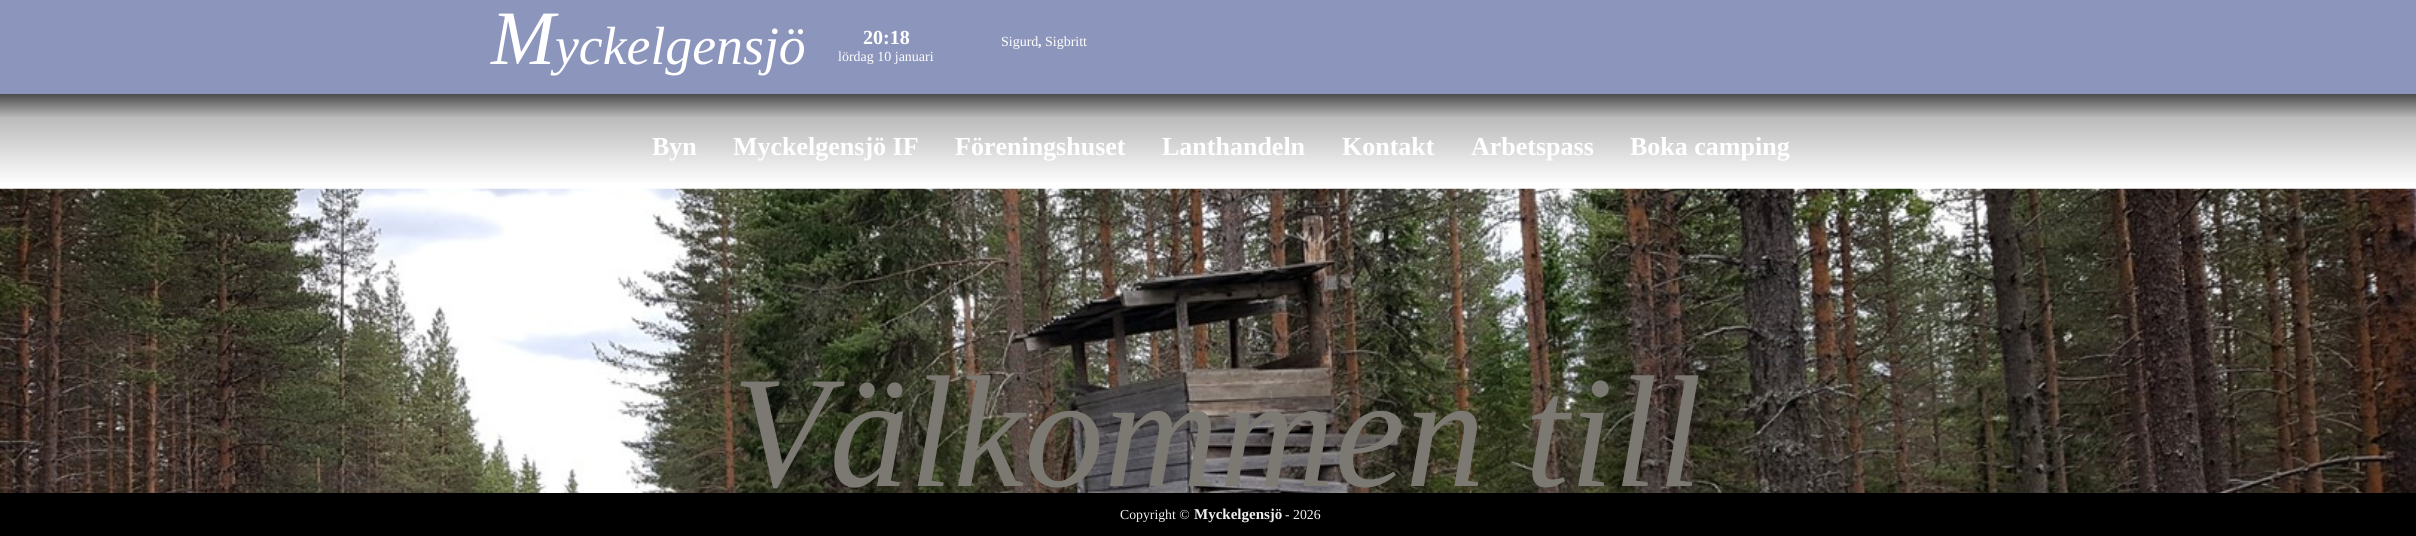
#include <cairo/cairo.h>
#include <math.h>
#include <stddef.h>


static void draw_image(cairo_t *cr, const char *path, double x, double y, double w, double h) {
  cairo_surface_t *image = cairo_image_surface_create_from_png(path);
  cairo_save(cr);
  cairo_set_source_surface(cr, image, x, y);
  cairo_rectangle(cr, x, y, w, h);
  cairo_fill(cr);
  cairo_restore(cr);
  cairo_surface_destroy(image);
}

static void draw(cairo_t *cr) {
  cairo_pattern_t *gradient;
  cairo_set_source_rgb(cr, 1, 1, 1);
  cairo_paint(cr);
  cairo_set_source_rgb(cr, 140 / 255.0, 149 / 255.0, 187 / 255.0);
  cairo_rectangle(cr, 0, 0, 2416, 94);
  cairo_fill(cr);
  gradient = cairo_pattern_create_linear(1208, 94, 1208, 119);
  cairo_pattern_add_color_stop_rgba(gradient, 0, 76 / 255.0, 76 / 255.0, 76 / 255.0, 1);
  cairo_pattern_add_color_stop_rgba(gradient, 1, 191 / 255.0, 191 / 255.0, 191 / 255.0, 1);
  cairo_set_source(cr, gradient);
  cairo_pattern_destroy(gradient);
  cairo_rectangle(cr, 0, 94, 2416, 25);
  cairo_fill(cr);
  gradient = cairo_pattern_create_linear(1208, 119, 1208, 185);
  cairo_pattern_add_color_stop_rgba(gradient, 0, 187 / 255.0, 187 / 255.0, 187 / 255.0, 1);
  cairo_pattern_add_color_stop_rgba(gradient, 1, 1, 1, 1, 1);
  cairo_set_source(cr, gradient);
  cairo_pattern_destroy(gradient);
  cairo_rectangle(cr, 0, 119, 2416, 64);
  cairo_fill(cr);
  draw_image(cr, "images/1.png", 0, 188, 2416, 305);
  cairo_set_source_rgb(cr, 0, 0, 0);
  cairo_rectangle(cr, 0, 493, 2416, 43);
  cairo_fill(cr);
  cairo_select_font_face(cr, "Liberation Serif", CAIRO_FONT_SLANT_ITALIC, CAIRO_FONT_WEIGHT_NORMAL);
  cairo_set_font_size(cr, 77);
  cairo_set_source_rgb(cr, 1, 1, 1);
  cairo_move_to(cr, 491, 64);
  cairo_show_text(cr, "M");
  cairo_set_font_size(cr, 53.75);
  cairo_move_to(cr, 555, 64);
  cairo_show_text(cr, "yckelgensjö");
  cairo_select_font_face(cr, "Liberation Serif", CAIRO_FONT_SLANT_NORMAL, CAIRO_FONT_WEIGHT_BOLD);
  cairo_set_font_size(cr, 20);
  cairo_move_to(cr, 863, 44);
  cairo_show_text(cr, "20:18");
  cairo_select_font_face(cr, "Liberation Serif", CAIRO_FONT_SLANT_NORMAL, CAIRO_FONT_WEIGHT_NORMAL);
  cairo_set_font_size(cr, 14);
  cairo_move_to(cr, 838, 61);
  cairo_show_text(cr, "lördag 10 januari");
  cairo_move_to(cr, 1001, 46);
  cairo_show_text(cr, "Sigurd");
  cairo_select_font_face(cr, "Liberation Serif", CAIRO_FONT_SLANT_NORMAL, CAIRO_FONT_WEIGHT_BOLD);
  cairo_move_to(cr, 1038, 46);
  cairo_show_text(cr, ",");
  cairo_select_font_face(cr, "Liberation Serif", CAIRO_FONT_SLANT_NORMAL, CAIRO_FONT_WEIGHT_NORMAL);
  cairo_move_to(cr, 1045, 46);
  cairo_show_text(cr, "Sigbritt");
  cairo_select_font_face(cr, "Liberation Serif", CAIRO_FONT_SLANT_NORMAL, CAIRO_FONT_WEIGHT_BOLD);
  cairo_set_font_size(cr, 26);
  cairo_move_to(cr, 652, 155);
  cairo_show_text(cr, "Byn");
  cairo_move_to(cr, 733, 155);
  cairo_show_text(cr, "Myckelgensjö IF");
  cairo_move_to(cr, 955, 155);
  cairo_show_text(cr, "Föreningshuset");
  cairo_move_to(cr, 1162, 155);
  cairo_show_text(cr, "Lanthandeln");
  cairo_move_to(cr, 1342, 155);
  cairo_show_text(cr, "Kontakt");
  cairo_move_to(cr, 1471, 155);
  cairo_show_text(cr, "Arbetspass");
  cairo_move_to(cr, 1630, 155);
  cairo_show_text(cr, "Boka camping");
  cairo_select_font_face(cr, "Liberation Serif", CAIRO_FONT_SLANT_ITALIC, CAIRO_FONT_WEIGHT_NORMAL);
  cairo_set_font_size(cr, 159.5);
  cairo_set_source_rgb(cr, 123 / 255.0, 121 / 255.0, 114 / 255.0);
  cairo_move_to(cr, 732, 486);
  cairo_show_text(cr, "Välkommen till");
  cairo_select_font_face(cr, "Liberation Serif", CAIRO_FONT_SLANT_NORMAL, CAIRO_FONT_WEIGHT_NORMAL);
  cairo_set_font_size(cr, 13.75);
  cairo_set_source_rgb(cr, 239 / 255.0, 239 / 255.0, 239 / 255.0);
  cairo_move_to(cr, 1120, 519);
  cairo_show_text(cr, "Copyright ©");
  cairo_select_font_face(cr, "Liberation Serif", CAIRO_FONT_SLANT_NORMAL, CAIRO_FONT_WEIGHT_BOLD);
  cairo_set_font_size(cr, 15);
  cairo_move_to(cr, 1194, 519);
  cairo_show_text(cr, "Myckelgensjö");
  cairo_select_font_face(cr, "Liberation Serif", CAIRO_FONT_SLANT_NORMAL, CAIRO_FONT_WEIGHT_NORMAL);
  cairo_set_font_size(cr, 13.75);
  cairo_move_to(cr, 1285, 519);
  cairo_show_text(cr, "- 2026");
}

int main(void) {
  cairo_surface_t *surface = cairo_image_surface_create(CAIRO_FORMAT_RGB24, 2416, 536);
  cairo_t *cr = cairo_create(surface);
  cairo_font_options_t *options = cairo_font_options_create();
  cairo_font_options_set_hint_metrics(options, CAIRO_HINT_METRICS_OFF);
  cairo_font_options_set_hint_style(options, CAIRO_HINT_STYLE_NONE);
  cairo_set_font_options(cr, options);
  cairo_set_miter_limit(cr, 4);
  draw(cr);
  cairo_surface_write_to_png(surface, "out.png");
  cairo_font_options_destroy(options);
  cairo_destroy(cr);
  cairo_surface_destroy(surface);
  return 0;
}
